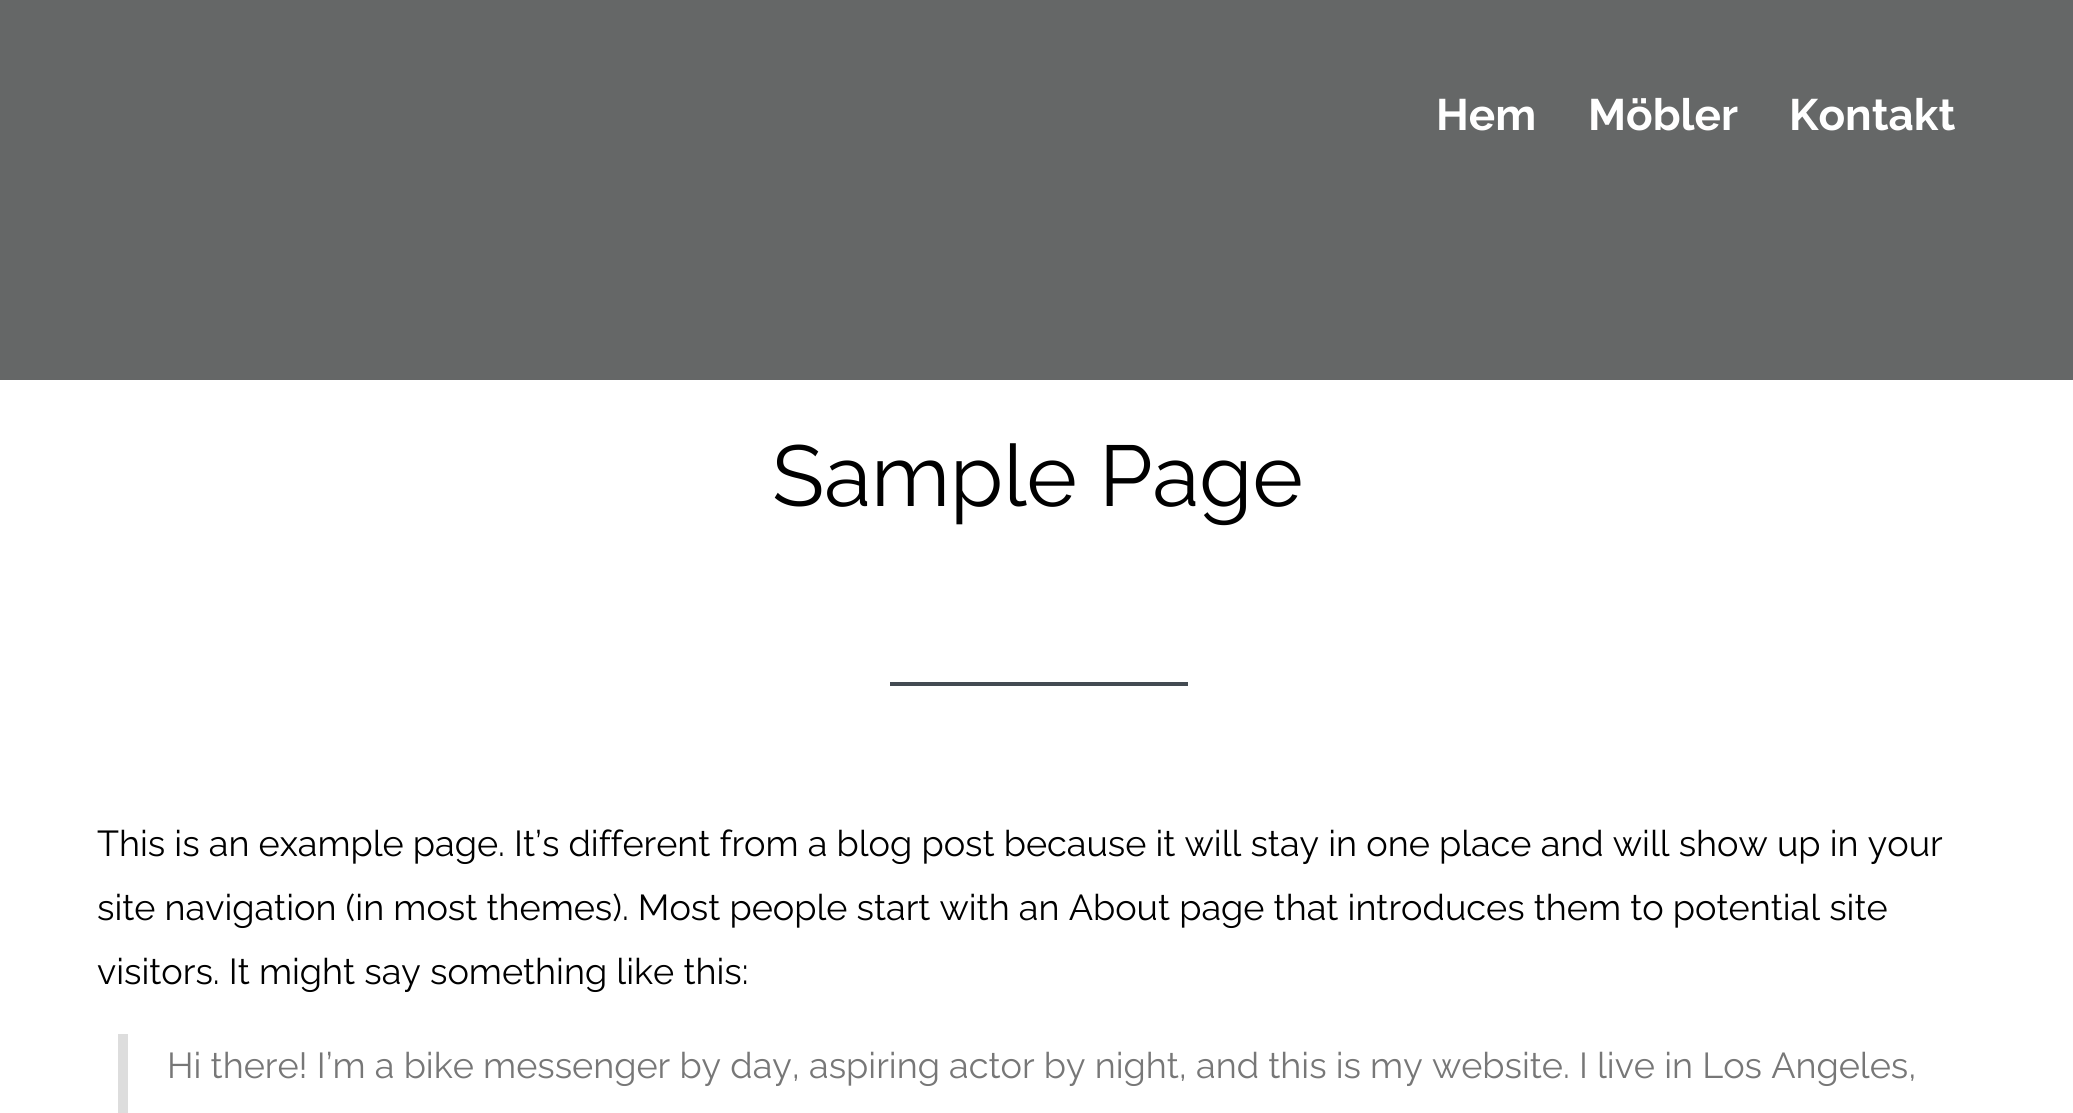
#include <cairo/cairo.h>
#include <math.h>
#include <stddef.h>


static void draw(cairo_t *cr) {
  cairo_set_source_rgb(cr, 1, 1, 1);
  cairo_paint(cr);
  cairo_set_source_rgb(cr, 101 / 255.0, 103 / 255.0, 103 / 255.0);
  cairo_rectangle(cr, 0, 0, 2073, 380);
  cairo_fill(cr);
  cairo_set_source_rgb(cr, 67 / 255.0, 75 / 255.0, 82 / 255.0);
  cairo_rectangle(cr, 890, 682, 298, 4);
  cairo_fill(cr);
  cairo_set_source_rgb(cr, 221 / 255.0, 221 / 255.0, 221 / 255.0);
  cairo_rectangle(cr, 118, 1034, 10, 79);
  cairo_fill(cr);
  cairo_select_font_face(cr, "Raleway", CAIRO_FONT_SLANT_NORMAL, CAIRO_FONT_WEIGHT_BOLD);
  cairo_set_font_size(cr, 44);
  cairo_set_source_rgb(cr, 1, 1, 1);
  cairo_move_to(cr, 1436, 130);
  cairo_show_text(cr, "Hem");
  cairo_move_to(cr, 1588, 130);
  cairo_show_text(cr, "Möbler");
  cairo_move_to(cr, 1789, 130);
  cairo_show_text(cr, "Kontakt");
  cairo_select_font_face(cr, "Raleway Thin", CAIRO_FONT_SLANT_NORMAL, CAIRO_FONT_WEIGHT_NORMAL);
  cairo_set_font_size(cr, 86);
  cairo_set_source_rgb(cr, 0, 0, 0);
  cairo_move_to(cr, 772, 506);
  cairo_show_text(cr, "Sample Page");
  cairo_set_font_size(cr, 36);
  cairo_move_to(cr, 97, 856);
  cairo_show_text(cr, "This is an example page. It’s different from a blog post because it will stay in one place and will show up in your");
  cairo_move_to(cr, 97, 920);
  cairo_show_text(cr, "site navigation (in most themes). Most people start with an About page that introduces them to potential site");
  cairo_move_to(cr, 97, 984);
  cairo_show_text(cr, "visitors. It might say something like this:");
  cairo_set_source_rgb(cr, 119 / 255.0, 119 / 255.0, 119 / 255.0);
  cairo_move_to(cr, 167, 1078);
  cairo_show_text(cr, "Hi there! I’m a bike messenger by day, aspiring actor by night, and this is my website. I live in Los Angeles,");
}

int main(void) {
  cairo_surface_t *surface = cairo_image_surface_create(CAIRO_FORMAT_RGB24, 2073, 1113);
  cairo_t *cr = cairo_create(surface);
  cairo_font_options_t *options = cairo_font_options_create();
  cairo_font_options_set_hint_metrics(options, CAIRO_HINT_METRICS_OFF);
  cairo_font_options_set_hint_style(options, CAIRO_HINT_STYLE_NONE);
  cairo_set_font_options(cr, options);
  cairo_set_miter_limit(cr, 4);
  draw(cr);
  cairo_surface_write_to_png(surface, "out.png");
  cairo_font_options_destroy(options);
  cairo_destroy(cr);
  cairo_surface_destroy(surface);
  return 0;
}
